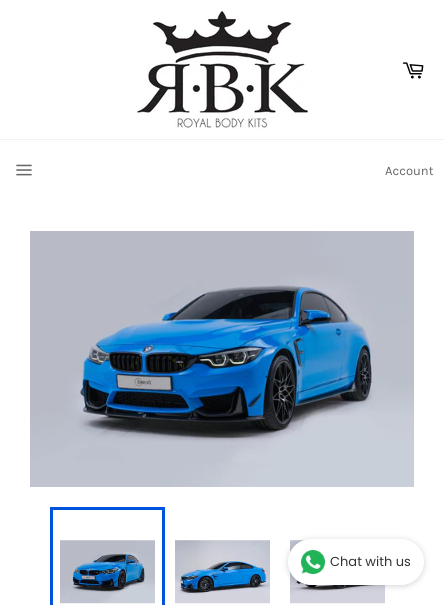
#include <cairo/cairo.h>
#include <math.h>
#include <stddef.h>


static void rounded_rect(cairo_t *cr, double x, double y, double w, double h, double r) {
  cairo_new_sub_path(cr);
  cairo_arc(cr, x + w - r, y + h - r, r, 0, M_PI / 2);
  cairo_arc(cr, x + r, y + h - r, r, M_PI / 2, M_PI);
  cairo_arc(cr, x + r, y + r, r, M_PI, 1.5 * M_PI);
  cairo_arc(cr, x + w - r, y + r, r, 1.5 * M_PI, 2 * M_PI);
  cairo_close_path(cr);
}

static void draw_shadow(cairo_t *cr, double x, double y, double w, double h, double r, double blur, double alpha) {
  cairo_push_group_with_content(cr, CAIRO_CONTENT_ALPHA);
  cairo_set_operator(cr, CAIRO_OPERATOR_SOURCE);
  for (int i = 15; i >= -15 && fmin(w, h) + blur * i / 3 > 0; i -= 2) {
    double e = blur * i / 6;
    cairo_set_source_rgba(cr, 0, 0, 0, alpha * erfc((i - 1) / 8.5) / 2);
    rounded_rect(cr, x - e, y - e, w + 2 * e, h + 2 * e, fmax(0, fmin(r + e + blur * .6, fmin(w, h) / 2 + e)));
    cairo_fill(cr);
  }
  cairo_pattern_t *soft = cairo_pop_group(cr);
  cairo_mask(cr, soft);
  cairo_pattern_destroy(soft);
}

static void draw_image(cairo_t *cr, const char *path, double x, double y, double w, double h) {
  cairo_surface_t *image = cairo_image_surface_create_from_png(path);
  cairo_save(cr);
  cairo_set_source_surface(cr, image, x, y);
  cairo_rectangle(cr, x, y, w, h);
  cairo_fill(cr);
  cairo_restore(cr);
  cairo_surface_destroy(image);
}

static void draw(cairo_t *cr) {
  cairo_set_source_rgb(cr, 1, 1, 1);
  cairo_paint(cr);
  draw_image(cr, "images/1.png", 136, 11, 173, 118);
  draw_image(cr, "images/2.png", 402, 62, 22, 17);
  cairo_set_source_rgb(cr, 242 / 255.0, 242 / 255.0, 242 / 255.0);
  cairo_rectangle(cr, 0, 139, 444, 1);
  cairo_fill(cr);
  draw_image(cr, "images/3.png", 16, 164, 16, 12);
  draw_image(cr, "images/4.png", 30, 231, 384, 256);
  draw_image(cr, "images/5.png", 60, 540, 95, 64);
  cairo_rectangle(cr, 51.5, 508.5, 112, 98);
  cairo_set_source_rgb(cr, 0, 83 / 255.0, 220 / 255.0);
  cairo_set_line_width(cr, 3);
  cairo_stroke(cr);
  draw_image(cr, "images/6.png", 175, 540, 95, 64);
  draw_image(cr, "images/7.png", 290, 540, 95, 64);
  cairo_set_source_rgb(cr, 27 / 255.0, 27 / 255.0, 27 / 255.0);
  draw_shadow(cr, 288, 540, 136, 46, 23, 3, 0.2);
  cairo_set_source_rgb(cr, 1, 1, 1);
  rounded_rect(cr, 288.5, 539.5, 135, 45, 22.5);
  cairo_fill_preserve(cr);
  cairo_set_line_width(cr, 1);
  cairo_stroke(cr);
  draw_image(cr, "images/8.png", 301, 550, 24, 24);
  cairo_select_font_face(cr, "Karla", CAIRO_FONT_SLANT_NORMAL, CAIRO_FONT_WEIGHT_NORMAL);
  cairo_set_font_size(cr, 13);
  cairo_set_source_rgb(cr, 102 / 255.0, 102 / 255.0, 102 / 255.0);
  cairo_move_to(cr, 385, 175);
  cairo_show_text(cr, "Account");
  cairo_select_font_face(cr, "Poppins", CAIRO_FONT_SLANT_NORMAL, CAIRO_FONT_WEIGHT_NORMAL);
  cairo_set_source_rgb(cr, 51 / 255.0, 51 / 255.0, 51 / 255.0);
  cairo_move_to(cr, 330, 566);
  cairo_show_text(cr, "Chat with us");
}

int main(void) {
  cairo_surface_t *surface = cairo_image_surface_create(CAIRO_FORMAT_RGB24, 444, 605);
  cairo_t *cr = cairo_create(surface);
  cairo_font_options_t *options = cairo_font_options_create();
  cairo_font_options_set_hint_metrics(options, CAIRO_HINT_METRICS_OFF);
  cairo_font_options_set_hint_style(options, CAIRO_HINT_STYLE_NONE);
  cairo_set_font_options(cr, options);
  cairo_set_miter_limit(cr, 4);
  draw(cr);
  cairo_surface_write_to_png(surface, "out.png");
  cairo_font_options_destroy(options);
  cairo_destroy(cr);
  cairo_surface_destroy(surface);
  return 0;
}
